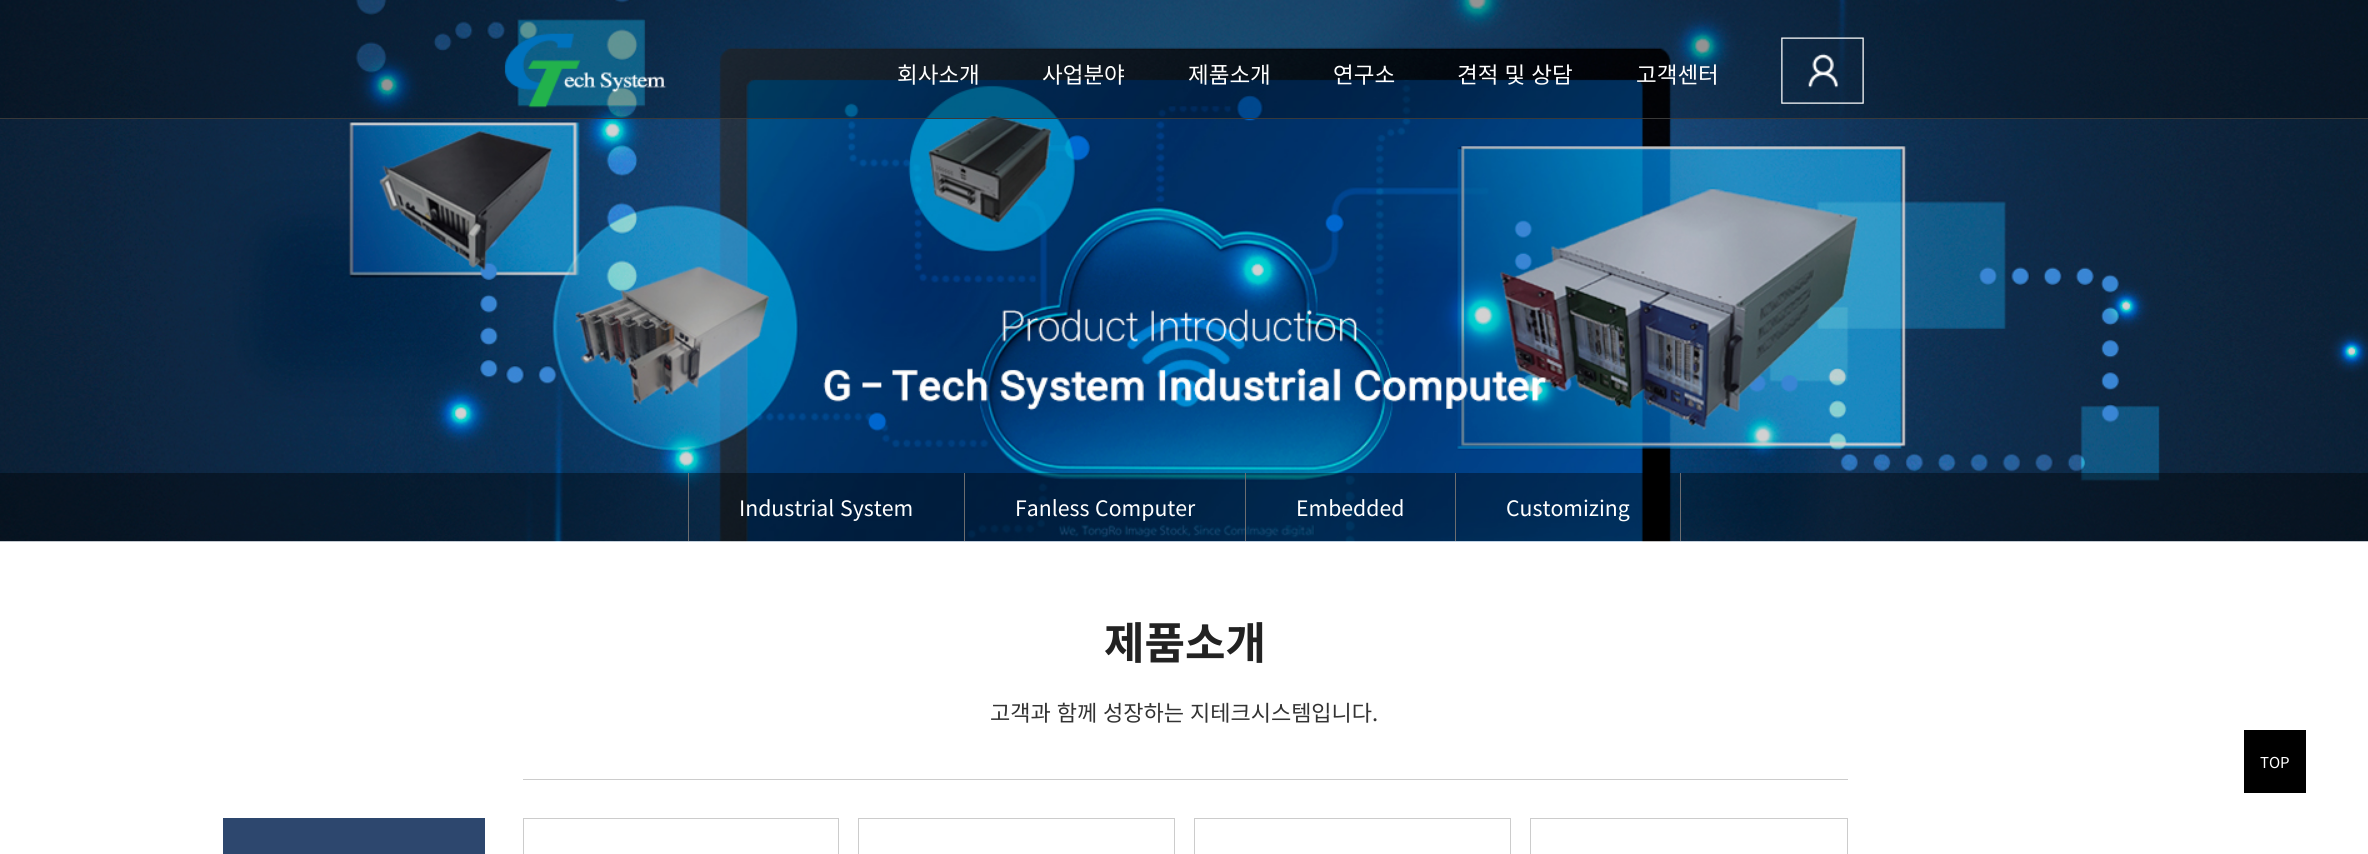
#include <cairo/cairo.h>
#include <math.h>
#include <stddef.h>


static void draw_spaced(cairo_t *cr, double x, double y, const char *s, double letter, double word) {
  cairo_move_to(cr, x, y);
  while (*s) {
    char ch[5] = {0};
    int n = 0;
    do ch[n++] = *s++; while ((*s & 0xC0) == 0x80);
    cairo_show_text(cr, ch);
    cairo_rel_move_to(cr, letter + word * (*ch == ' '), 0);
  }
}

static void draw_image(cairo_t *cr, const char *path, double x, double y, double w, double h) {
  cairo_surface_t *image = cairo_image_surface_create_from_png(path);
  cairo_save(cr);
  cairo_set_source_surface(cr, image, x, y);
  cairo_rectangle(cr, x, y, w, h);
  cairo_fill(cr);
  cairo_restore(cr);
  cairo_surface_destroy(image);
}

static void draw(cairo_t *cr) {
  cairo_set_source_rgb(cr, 1, 1, 1);
  cairo_paint(cr);
  draw_image(cr, "images/3.png", 0, 0, 2368, 542);
  cairo_set_source_rgba(cr, 0, 0, 0, 0.3);
  cairo_rectangle(cr, 0, 0, 2368, 118);
  cairo_fill(cr);
  cairo_set_source_rgb(cr, 57 / 255.0, 57 / 255.0, 57 / 255.0);
  cairo_rectangle(cr, 0, 118, 2368, 1);
  cairo_fill(cr);
  draw_image(cr, "images/1.png", 504, 33, 163, 75);
  draw_image(cr, "images/2.png", 1781, 37, 83, 67);
  cairo_set_source_rgba(cr, 0, 0, 0, 0.4);
  cairo_rectangle(cr, 0, 473, 2368, 68);
  cairo_fill(cr);
  cairo_set_source_rgb(cr, 108 / 255.0, 109 / 255.0, 111 / 255.0);
  cairo_rectangle(cr, 1680, 473, 1, 68);
  cairo_fill(cr);
  cairo_rectangle(cr, 688, 473, 1, 68);
  cairo_fill(cr);
  cairo_rectangle(cr, 964, 473, 1, 68);
  cairo_fill(cr);
  cairo_rectangle(cr, 1245, 473, 1, 68);
  cairo_fill(cr);
  cairo_rectangle(cr, 1455, 473, 1, 68);
  cairo_fill(cr);
  cairo_set_source_rgb(cr, 204 / 255.0, 204 / 255.0, 204 / 255.0);
  cairo_rectangle(cr, 523, 779, 1325, 1);
  cairo_fill(cr);
  cairo_set_source_rgb(cr, 45 / 255.0, 71 / 255.0, 110 / 255.0);
  cairo_rectangle(cr, 223, 818, 262, 36);
  cairo_fill(cr);
  cairo_rectangle(cr, 523.5, 818.5, 315, 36);
  cairo_set_source_rgb(cr, 204 / 255.0, 204 / 255.0, 204 / 255.0);
  cairo_set_line_width(cr, 1);
  cairo_stroke(cr);
  cairo_rectangle(cr, 858.5, 818.5, 316, 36);
  cairo_stroke(cr);
  cairo_rectangle(cr, 1194.5, 818.5, 316, 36);
  cairo_stroke(cr);
  cairo_rectangle(cr, 1530.5, 818.5, 317, 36);
  cairo_stroke(cr);
  cairo_set_source_rgb(cr, 0, 0, 0);
  cairo_rectangle(cr, 2244, 730, 62, 63);
  cairo_fill(cr);
  cairo_select_font_face(cr, "Noto Sans KR", CAIRO_FONT_SLANT_NORMAL, CAIRO_FONT_WEIGHT_NORMAL);
  cairo_set_font_size(cr, 22.5);
  cairo_set_source_rgb(cr, 1, 1, 1);
  cairo_move_to(cr, 897, 83);
  cairo_show_text(cr, "회사소개");
  cairo_move_to(cr, 1042, 83);
  cairo_show_text(cr, "사업분야");
  cairo_move_to(cr, 1188, 83);
  cairo_show_text(cr, "제품소개");
  cairo_move_to(cr, 1333, 83);
  cairo_show_text(cr, "연구소");
  draw_spaced(cr, 1457, 83, "견적 및 상담", 0, 1);
  cairo_move_to(cr, 1636, 83);
  cairo_show_text(cr, "고객센터");
  cairo_set_font_size(cr, 21.25);
  draw_spaced(cr, 739, 516, "Industrial System", 0, 1);
  draw_spaced(cr, 1015, 516, "Fanless Computer", 0, 1);
  cairo_move_to(cr, 1296, 516);
  cairo_show_text(cr, "Embedded");
  cairo_move_to(cr, 1506, 516);
  cairo_show_text(cr, "Customizing");
  cairo_select_font_face(cr, "Noto Sans KR", CAIRO_FONT_SLANT_NORMAL, CAIRO_FONT_WEIGHT_BOLD);
  cairo_set_font_size(cr, 44);
  cairo_set_source_rgb(cr, 34 / 255.0, 34 / 255.0, 34 / 255.0);
  cairo_move_to(cr, 1104, 659);
  cairo_show_text(cr, "제품소개");
  cairo_select_font_face(cr, "Noto Sans KR", CAIRO_FONT_SLANT_NORMAL, CAIRO_FONT_WEIGHT_NORMAL);
  cairo_set_font_size(cr, 22);
  cairo_set_source_rgb(cr, 51 / 255.0, 51 / 255.0, 51 / 255.0);
  draw_spaced(cr, 990, 721, "고객과 함께 성장하는 지테크시스템입니다.", 0, 1);
  cairo_set_font_size(cr, 15);
  cairo_set_source_rgb(cr, 1, 1, 1);
  cairo_move_to(cr, 2260, 768);
  cairo_show_text(cr, "TOP");
}

int main(void) {
  cairo_surface_t *surface = cairo_image_surface_create(CAIRO_FORMAT_RGB24, 2368, 854);
  cairo_t *cr = cairo_create(surface);
  cairo_font_options_t *options = cairo_font_options_create();
  cairo_font_options_set_hint_metrics(options, CAIRO_HINT_METRICS_OFF);
  cairo_font_options_set_hint_style(options, CAIRO_HINT_STYLE_NONE);
  cairo_set_font_options(cr, options);
  cairo_set_miter_limit(cr, 4);
  draw(cr);
  cairo_surface_write_to_png(surface, "out.png");
  cairo_font_options_destroy(options);
  cairo_destroy(cr);
  cairo_surface_destroy(surface);
  return 0;
}
